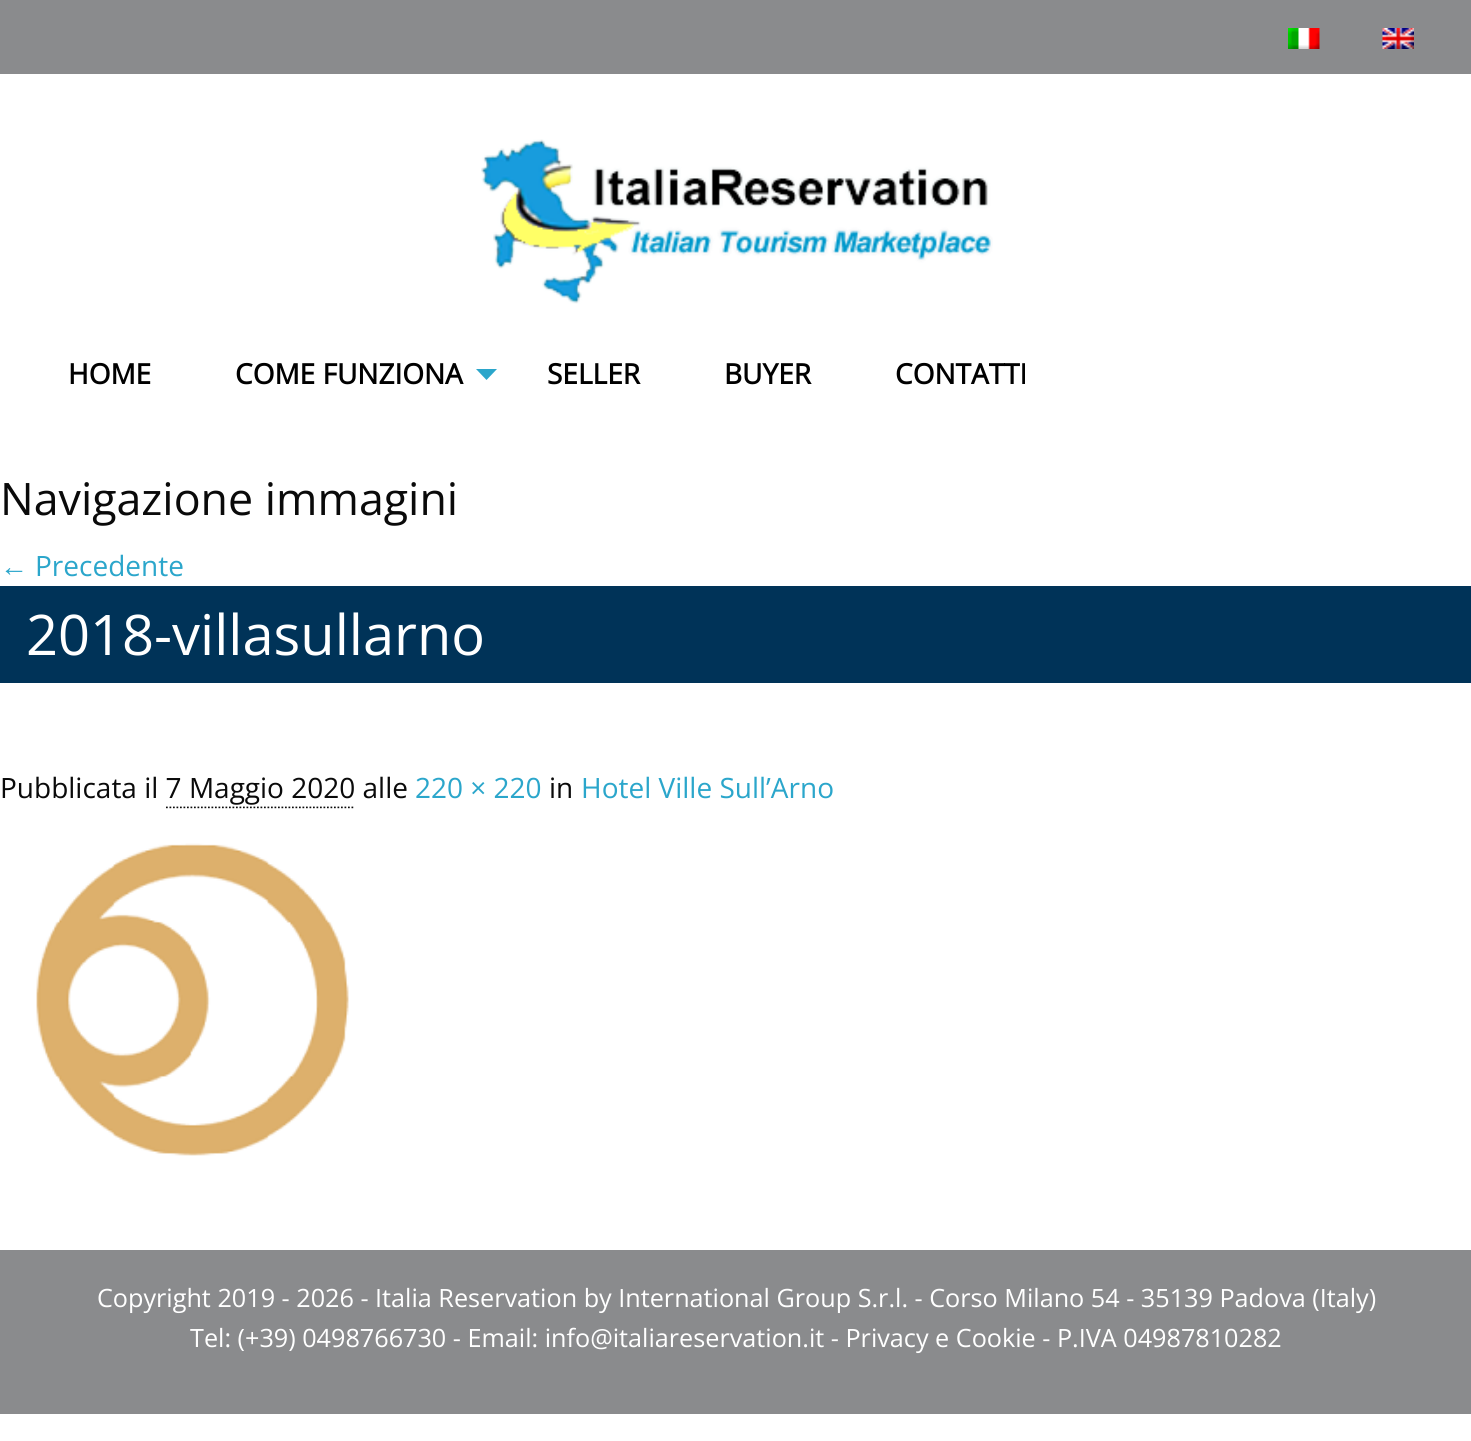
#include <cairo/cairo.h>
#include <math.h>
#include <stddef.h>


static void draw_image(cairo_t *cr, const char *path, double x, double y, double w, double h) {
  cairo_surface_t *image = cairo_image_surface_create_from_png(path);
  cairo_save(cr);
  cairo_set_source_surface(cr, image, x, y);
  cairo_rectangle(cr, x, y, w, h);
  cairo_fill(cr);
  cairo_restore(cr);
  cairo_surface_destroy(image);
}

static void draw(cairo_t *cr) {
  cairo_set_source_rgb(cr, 1, 1, 1);
  cairo_paint(cr);
  cairo_set_source_rgb(cr, 138 / 255.0, 139 / 255.0, 141 / 255.0);
  cairo_rectangle(cr, 0, 0, 1471, 74);
  cairo_fill(cr);
  draw_image(cr, "images/1.png", 1288, 28, 32, 21);
  draw_image(cr, "images/2.png", 1382, 28, 32, 21);
  draw_image(cr, "images/3.png", 481, 139, 512, 165);
  cairo_set_source_rgb(cr, 43 / 255.0, 166 / 255.0, 203 / 255.0);
  cairo_new_path(cr);
  cairo_move_to(cr, 476, 369);
  cairo_line_to(cr, 497, 369);
  cairo_line_to(cr, 486.5, 380);
  cairo_close_path(cr);
  cairo_fill(cr);
  cairo_set_source_rgb(cr, 0, 51 / 255.0, 88 / 255.0);
  cairo_rectangle(cr, 0, 586, 1471, 97);
  cairo_fill(cr);
  cairo_new_path(cr);
  cairo_move_to(cr, 166, 807.5);
  cairo_line_to(cr, 355, 807.5);
  cairo_set_source_rgb(cr, 10 / 255.0, 10 / 255.0, 10 / 255.0);
  cairo_set_line_width(cr, 1.8);
  cairo_set_dash(cr, (double[]){1.75, 1.75}, 2, 0);
  cairo_stroke(cr);
  draw_image(cr, "images/4.png", 36, 808, 318, 348);
  cairo_set_source_rgb(cr, 138 / 255.0, 139 / 255.0, 141 / 255.0);
  cairo_rectangle(cr, 0, 1250, 1471, 164);
  cairo_fill(cr);
  cairo_select_font_face(cr, "Open Sans", CAIRO_FONT_SLANT_NORMAL, CAIRO_FONT_WEIGHT_BOLD);
  cairo_set_font_size(cr, 28);
  cairo_set_source_rgb(cr, 0, 0, 0);
  cairo_move_to(cr, 68, 384);
  cairo_show_text(cr, "HOME");
  cairo_move_to(cr, 235, 384);
  cairo_show_text(cr, "COME FUNZIONA");
  cairo_move_to(cr, 547, 384);
  cairo_show_text(cr, "SELLER");
  cairo_move_to(cr, 724, 384);
  cairo_show_text(cr, "BUYER");
  cairo_move_to(cr, 895, 384);
  cairo_show_text(cr, "CONTATTI");
  cairo_select_font_face(cr, "Open Sans", CAIRO_FONT_SLANT_NORMAL, CAIRO_FONT_WEIGHT_NORMAL);
  cairo_set_font_size(cr, 44.75);
  cairo_set_source_rgb(cr, 10 / 255.0, 10 / 255.0, 10 / 255.0);
  cairo_move_to(cr, 0, 515);
  cairo_show_text(cr, "Navigazione immagini");
  cairo_select_font_face(cr, "Liberation Sans", CAIRO_FONT_SLANT_NORMAL, CAIRO_FONT_WEIGHT_NORMAL);
  cairo_set_font_size(cr, 28);
  cairo_set_source_rgb(cr, 43 / 255.0, 166 / 255.0, 203 / 255.0);
  cairo_move_to(cr, 0, 576);
  cairo_show_text(cr, "←");
  cairo_select_font_face(cr, "Open Sans", CAIRO_FONT_SLANT_NORMAL, CAIRO_FONT_WEIGHT_NORMAL);
  cairo_move_to(cr, 35, 576);
  cairo_show_text(cr, "Precedente");
  cairo_set_font_size(cr, 56);
  cairo_set_source_rgb(cr, 1, 1, 1);
  cairo_move_to(cr, 26, 655);
  cairo_show_text(cr, "2018-villasullarno");
  cairo_set_font_size(cr, 28);
  cairo_set_source_rgb(cr, 10 / 255.0, 10 / 255.0, 10 / 255.0);
  cairo_move_to(cr, 0, 798);
  cairo_show_text(cr, "Pubblicata il 7 Maggio 2020 alle");
  cairo_set_source_rgb(cr, 43 / 255.0, 166 / 255.0, 203 / 255.0);
  cairo_move_to(cr, 415, 798);
  cairo_show_text(cr, "220 × 220");
  cairo_set_source_rgb(cr, 10 / 255.0, 10 / 255.0, 10 / 255.0);
  cairo_move_to(cr, 549, 798);
  cairo_show_text(cr, "in");
  cairo_set_source_rgb(cr, 43 / 255.0, 166 / 255.0, 203 / 255.0);
  cairo_move_to(cr, 581, 798);
  cairo_show_text(cr, "Hotel Ville Sull’Arno");
  cairo_set_font_size(cr, 25.2);
  cairo_set_source_rgb(cr, 1, 1, 1);
  cairo_move_to(cr, 97, 1307);
  cairo_show_text(cr, "Copyright 2019 - 2026 - Italia Reservation by International Group S.r.l. - Corso Milano 54 - 35139 Padova (Italy)");
  cairo_move_to(cr, 190, 1347);
  cairo_show_text(cr, "Tel: (+39) 0498766730 - Email: info@italiareservation.it - Privacy e Cookie - P.IVA 04987810282");
}

int main(void) {
  cairo_surface_t *surface = cairo_image_surface_create(CAIRO_FORMAT_RGB24, 1471, 1441);
  cairo_t *cr = cairo_create(surface);
  cairo_font_options_t *options = cairo_font_options_create();
  cairo_font_options_set_hint_metrics(options, CAIRO_HINT_METRICS_OFF);
  cairo_font_options_set_hint_style(options, CAIRO_HINT_STYLE_NONE);
  cairo_set_font_options(cr, options);
  cairo_set_miter_limit(cr, 4);
  draw(cr);
  cairo_surface_write_to_png(surface, "out.png");
  cairo_font_options_destroy(options);
  cairo_destroy(cr);
  cairo_surface_destroy(surface);
  return 0;
}
